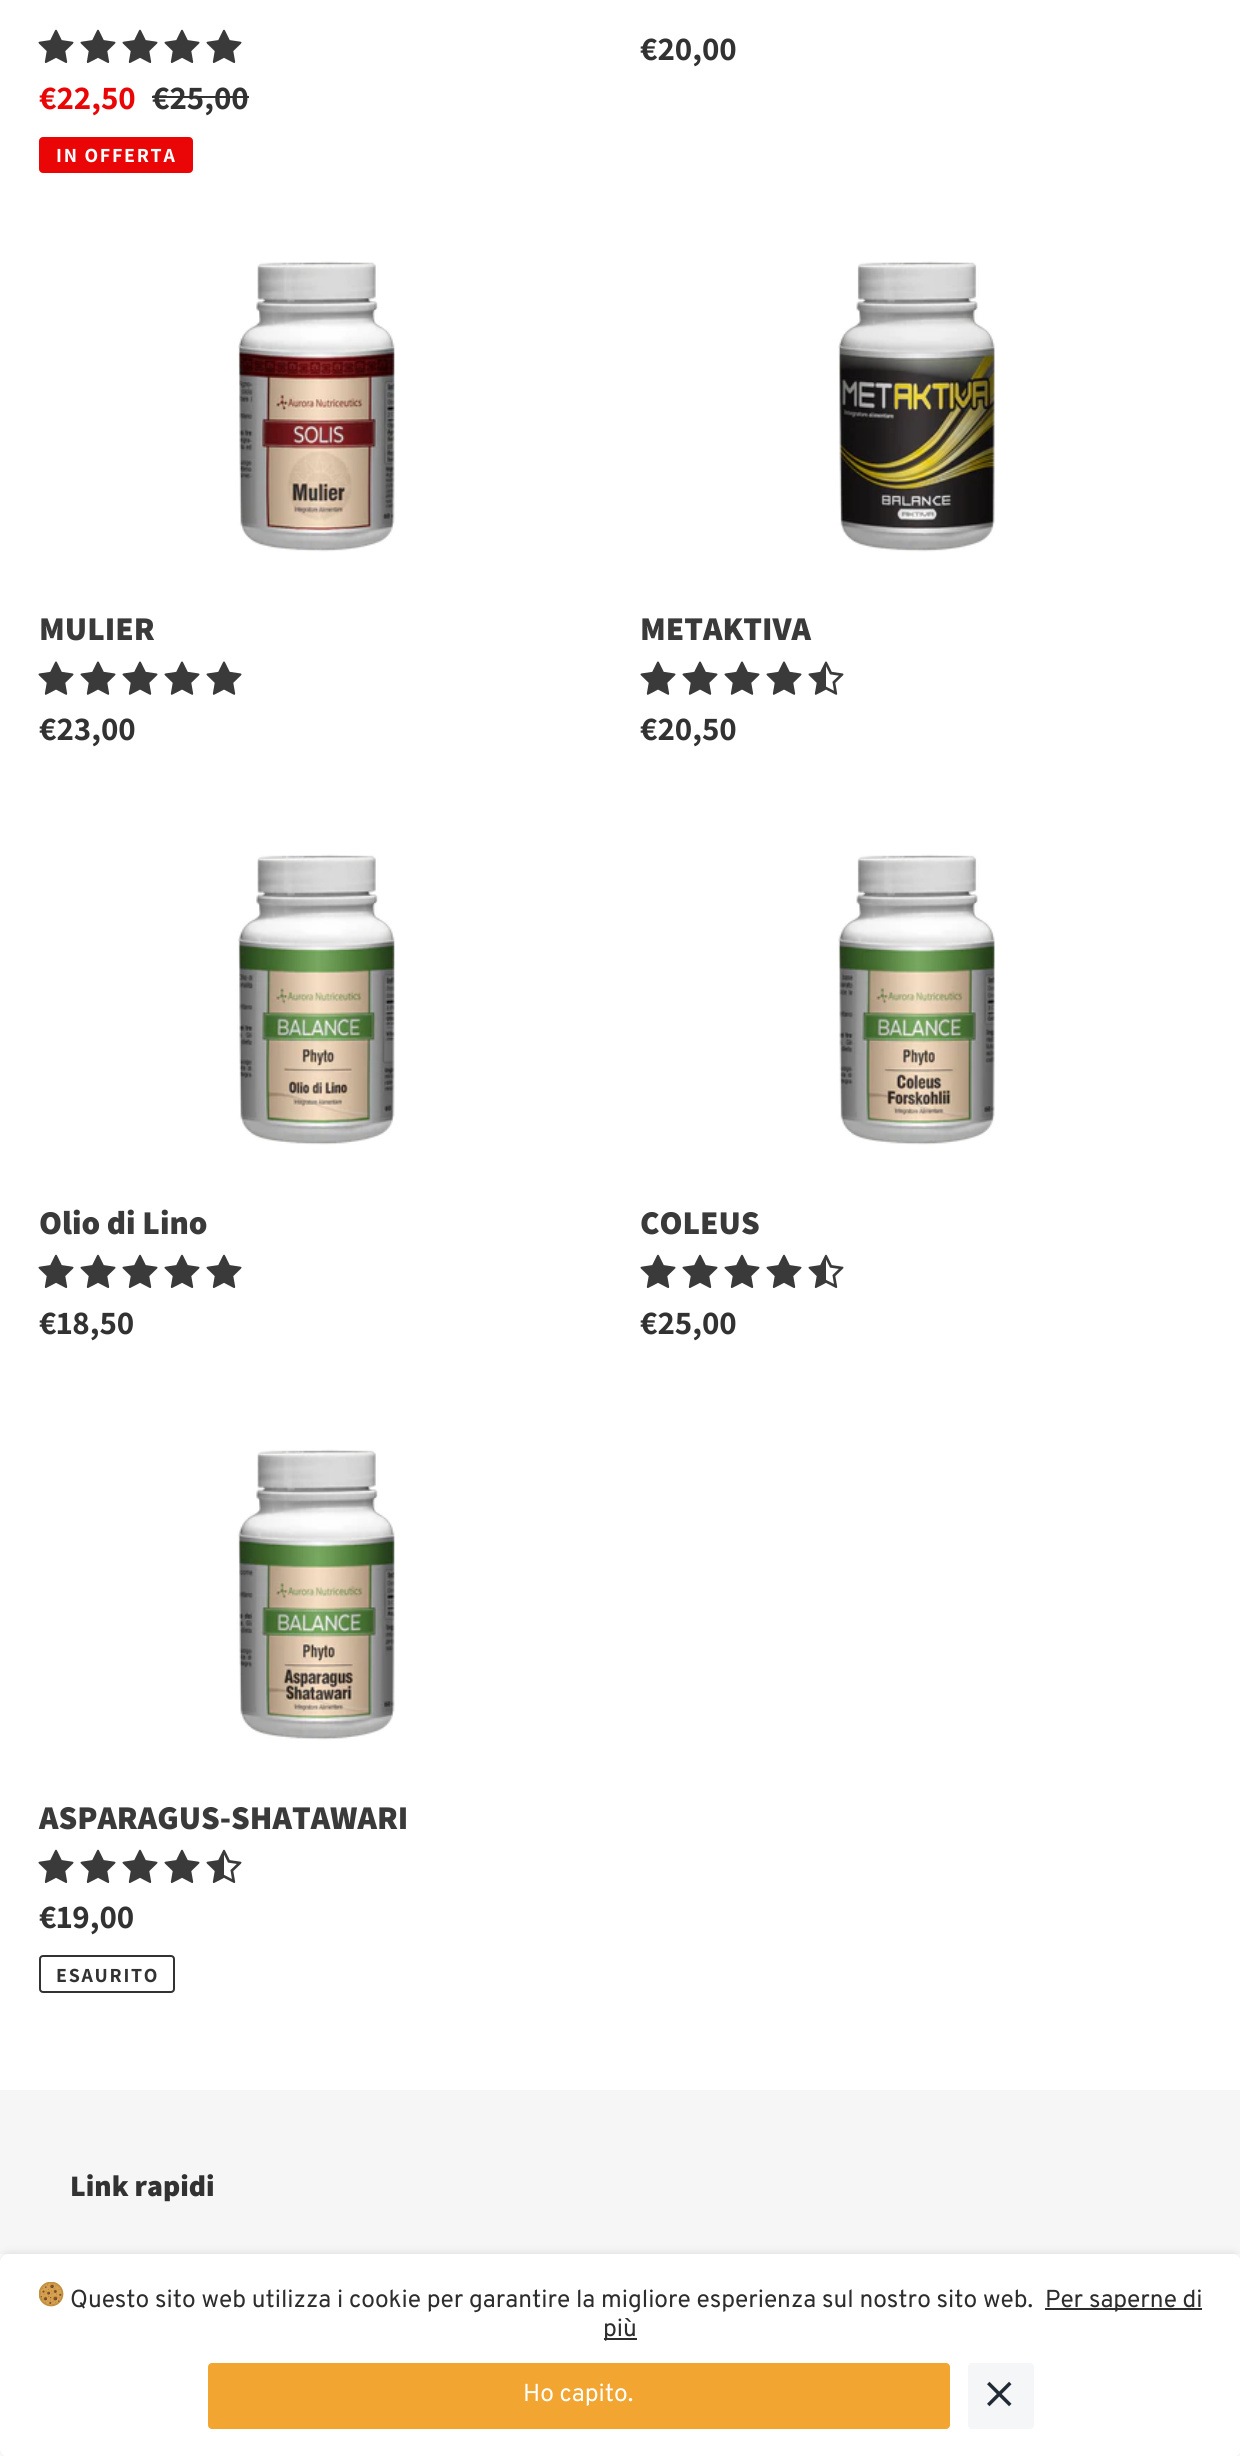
#include <cairo/cairo.h>
#include <math.h>
#include <stddef.h>


static void draw_spaced(cairo_t *cr, double x, double y, const char *s, double letter, double word) {
  cairo_move_to(cr, x, y);
  while (*s) {
    char ch[5] = {0};
    int n = 0;
    do ch[n++] = *s++; while ((*s & 0xC0) == 0x80);
    cairo_show_text(cr, ch);
    cairo_rel_move_to(cr, letter + word * (*ch == ' '), 0);
  }
}

static void rounded_rect(cairo_t *cr, double x, double y, double w, double h, double r) {
  cairo_new_sub_path(cr);
  cairo_arc(cr, x + w - r, y + h - r, r, 0, M_PI / 2);
  cairo_arc(cr, x + r, y + h - r, r, M_PI / 2, M_PI);
  cairo_arc(cr, x + r, y + r, r, M_PI, 1.5 * M_PI);
  cairo_arc(cr, x + w - r, y + r, r, 1.5 * M_PI, 2 * M_PI);
  cairo_close_path(cr);
}

static void draw_shadow(cairo_t *cr, double x, double y, double w, double h, double r, double blur, double alpha) {
  cairo_push_group_with_content(cr, CAIRO_CONTENT_ALPHA);
  cairo_set_operator(cr, CAIRO_OPERATOR_SOURCE);
  for (int i = 15; i >= -15 && fmin(w, h) + blur * i / 3 > 0; i -= 2) {
    double e = blur * i / 6;
    cairo_set_source_rgba(cr, 0, 0, 0, alpha * erfc((i - 1) / 8.5) / 2);
    rounded_rect(cr, x - e, y - e, w + 2 * e, h + 2 * e, fmax(0, fmin(r + e + blur * .6, fmin(w, h) / 2 + e)));
    cairo_fill(cr);
  }
  cairo_pattern_t *soft = cairo_pop_group(cr);
  cairo_mask(cr, soft);
  cairo_pattern_destroy(soft);
}

static void draw_image(cairo_t *cr, const char *path, double x, double y, double w, double h) {
  cairo_surface_t *image = cairo_image_surface_create_from_png(path);
  cairo_save(cr);
  cairo_set_source_surface(cr, image, x, y);
  cairo_rectangle(cr, x, y, w, h);
  cairo_fill(cr);
  cairo_restore(cr);
  cairo_surface_destroy(image);
}

static void draw(cairo_t *cr) {
  cairo_set_source_rgb(cr, 1, 1, 1);
  cairo_paint(cr);
  draw_image(cr, "images/1.png", 38, 29, 36, 34);
  draw_image(cr, "images/1.png", 80, 29, 36, 34);
  draw_image(cr, "images/1.png", 122, 29, 36, 34);
  draw_image(cr, "images/1.png", 164, 29, 36, 34);
  draw_image(cr, "images/1.png", 206, 29, 36, 34);
  cairo_set_source_rgb(cr, 51 / 255.0, 50 / 255.0, 50 / 255.0);
  cairo_rectangle(cr, 152, 96, 97, 2);
  cairo_fill(cr);
  cairo_set_source_rgb(cr, 234 / 255.0, 6 / 255.0, 6 / 255.0);
  rounded_rect(cr, 40, 138, 152, 34, 3);
  cairo_fill_preserve(cr);
  cairo_stroke(cr);
  draw_image(cr, "images/2.png", 238, 261, 157, 291);
  draw_image(cr, "images/3.png", 38, 661, 36, 34);
  draw_image(cr, "images/3.png", 80, 661, 36, 34);
  draw_image(cr, "images/3.png", 122, 661, 36, 34);
  draw_image(cr, "images/3.png", 164, 661, 36, 34);
  draw_image(cr, "images/3.png", 206, 661, 36, 34);
  draw_image(cr, "images/4.png", 838, 261, 157, 291);
  draw_image(cr, "images/3.png", 640, 661, 36, 34);
  draw_image(cr, "images/3.png", 682, 661, 36, 34);
  draw_image(cr, "images/3.png", 724, 661, 36, 34);
  draw_image(cr, "images/3.png", 766, 661, 36, 34);
  draw_image(cr, "images/5.png", 808, 661, 36, 34);
  draw_image(cr, "images/6.png", 237, 854, 158, 291);
  draw_image(cr, "images/1.png", 38, 1254, 36, 34);
  draw_image(cr, "images/1.png", 80, 1254, 36, 34);
  draw_image(cr, "images/1.png", 122, 1254, 36, 34);
  draw_image(cr, "images/1.png", 164, 1254, 36, 34);
  draw_image(cr, "images/1.png", 206, 1254, 36, 34);
  draw_image(cr, "images/7.png", 838, 854, 157, 291);
  draw_image(cr, "images/1.png", 640, 1254, 36, 34);
  draw_image(cr, "images/1.png", 682, 1254, 36, 34);
  draw_image(cr, "images/1.png", 724, 1254, 36, 34);
  draw_image(cr, "images/1.png", 766, 1254, 36, 34);
  draw_image(cr, "images/8.png", 808, 1254, 36, 34);
  draw_image(cr, "images/9.png", 237, 1449, 158, 291);
  draw_image(cr, "images/1.png", 38, 1849, 36, 34);
  draw_image(cr, "images/1.png", 80, 1849, 36, 34);
  draw_image(cr, "images/1.png", 122, 1849, 36, 34);
  draw_image(cr, "images/1.png", 164, 1849, 36, 34);
  draw_image(cr, "images/8.png", 206, 1849, 36, 34);
  rounded_rect(cr, 40, 1956, 134, 36, 3);
  cairo_set_source_rgb(cr, 51 / 255.0, 50 / 255.0, 50 / 255.0);
  cairo_stroke(cr);
  cairo_set_source_rgb(cr, 246 / 255.0, 246 / 255.0, 246 / 255.0);
  cairo_rectangle(cr, 0, 2090, 1240, 164);
  cairo_fill(cr);
  cairo_save(cr);
  cairo_set_fill_rule(cr, CAIRO_FILL_RULE_EVEN_ODD);
  cairo_new_path(cr);
  cairo_move_to(cr, 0, 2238);
  cairo_line_to(cr, 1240, 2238);
  cairo_line_to(cr, 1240, 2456);
  cairo_line_to(cr, 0, 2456);
  cairo_close_path(cr);
  cairo_move_to(cr, 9, 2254);
  cairo_line_to(cr, 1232, 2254);
  cairo_curve_to(cr, 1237, 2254, 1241, 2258, 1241, 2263);
  cairo_line_to(cr, 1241, 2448);
  cairo_curve_to(cr, 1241, 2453, 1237, 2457, 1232, 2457);
  cairo_line_to(cr, 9, 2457);
  cairo_curve_to(cr, 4, 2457, 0, 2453, 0, 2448);
  cairo_line_to(cr, 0, 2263);
  cairo_curve_to(cr, 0, 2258, 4, 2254, 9, 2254);
  cairo_close_path(cr);
  cairo_clip(cr);
  cairo_set_source_rgb(cr, 0, 0, 0);
  draw_shadow(cr, 0, 2254, 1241, 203, 9, 5, 0.12);
  cairo_restore(cr);
  draw_image(cr, "images/10.png", 39, 2282, 25, 25);
  cairo_set_source_rgb(cr, 45 / 255.0, 45 / 255.0, 45 / 255.0);
  cairo_rectangle(cr, 1045, 2308, 157, 2);
  cairo_fill(cr);
  cairo_rectangle(cr, 604, 2338, 33, 2);
  cairo_fill(cr);
  cairo_set_source_rgb(cr, 242 / 255.0, 165 / 255.0, 49 / 255.0);
  rounded_rect(cr, 208, 2363, 742, 66, 4);
  cairo_fill(cr);
  cairo_set_source_rgb(cr, 244 / 255.0, 246 / 255.0, 248 / 255.0);
  rounded_rect(cr, 968, 2363, 66, 66, 4);
  cairo_fill(cr);
  draw_image(cr, "images/11.png", 987, 2381, 25, 26);
  cairo_select_font_face(cr, "Assistant", CAIRO_FONT_SLANT_NORMAL, CAIRO_FONT_WEIGHT_BOLD);
  cairo_set_font_size(cr, 33.25);
  cairo_set_source_rgb(cr, 51 / 255.0, 50 / 255.0, 50 / 255.0);
  cairo_move_to(cr, 640, 60);
  cairo_show_text(cr, "€20,00");
  cairo_set_source_rgb(cr, 234 / 255.0, 6 / 255.0, 6 / 255.0);
  cairo_move_to(cr, 39, 109);
  cairo_show_text(cr, "€22,50");
  cairo_set_source_rgb(cr, 51 / 255.0, 50 / 255.0, 50 / 255.0);
  cairo_move_to(cr, 152, 109);
  cairo_show_text(cr, "€25,00");
  cairo_set_font_size(cr, 20);
  cairo_set_source_rgb(cr, 1, 1, 1);
  draw_spaced(cr, 56, 162, "IN OFFERTA", 1.75, 0);
  cairo_select_font_face(cr, "Assistant ExtraBold", CAIRO_FONT_SLANT_NORMAL, CAIRO_FONT_WEIGHT_NORMAL);
  cairo_set_font_size(cr, 33.25);
  cairo_set_source_rgb(cr, 58 / 255.0, 58 / 255.0, 58 / 255.0);
  cairo_move_to(cr, 39, 640);
  cairo_show_text(cr, "MULIER");
  cairo_select_font_face(cr, "Assistant", CAIRO_FONT_SLANT_NORMAL, CAIRO_FONT_WEIGHT_BOLD);
  cairo_set_source_rgb(cr, 51 / 255.0, 50 / 255.0, 50 / 255.0);
  cairo_move_to(cr, 39, 740);
  cairo_show_text(cr, "€23,00");
  cairo_select_font_face(cr, "Assistant ExtraBold", CAIRO_FONT_SLANT_NORMAL, CAIRO_FONT_WEIGHT_NORMAL);
  cairo_set_source_rgb(cr, 58 / 255.0, 58 / 255.0, 58 / 255.0);
  cairo_move_to(cr, 640, 640);
  cairo_show_text(cr, "METAKTIVA");
  cairo_select_font_face(cr, "Assistant", CAIRO_FONT_SLANT_NORMAL, CAIRO_FONT_WEIGHT_BOLD);
  cairo_set_source_rgb(cr, 51 / 255.0, 50 / 255.0, 50 / 255.0);
  cairo_move_to(cr, 640, 740);
  cairo_show_text(cr, "€20,50");
  cairo_select_font_face(cr, "Assistant ExtraBold", CAIRO_FONT_SLANT_NORMAL, CAIRO_FONT_WEIGHT_NORMAL);
  cairo_set_source_rgb(cr, 58 / 255.0, 58 / 255.0, 58 / 255.0);
  cairo_move_to(cr, 39, 1234);
  cairo_show_text(cr, "Olio di Lino");
  cairo_select_font_face(cr, "Assistant", CAIRO_FONT_SLANT_NORMAL, CAIRO_FONT_WEIGHT_BOLD);
  cairo_set_source_rgb(cr, 51 / 255.0, 50 / 255.0, 50 / 255.0);
  cairo_move_to(cr, 39, 1334);
  cairo_show_text(cr, "€18,50");
  cairo_select_font_face(cr, "Assistant ExtraBold", CAIRO_FONT_SLANT_NORMAL, CAIRO_FONT_WEIGHT_NORMAL);
  cairo_set_source_rgb(cr, 58 / 255.0, 58 / 255.0, 58 / 255.0);
  cairo_move_to(cr, 640, 1234);
  cairo_show_text(cr, "COLEUS");
  cairo_select_font_face(cr, "Assistant", CAIRO_FONT_SLANT_NORMAL, CAIRO_FONT_WEIGHT_BOLD);
  cairo_set_source_rgb(cr, 51 / 255.0, 50 / 255.0, 50 / 255.0);
  cairo_move_to(cr, 640, 1334);
  cairo_show_text(cr, "€25,00");
  cairo_select_font_face(cr, "Assistant ExtraBold", CAIRO_FONT_SLANT_NORMAL, CAIRO_FONT_WEIGHT_NORMAL);
  cairo_set_source_rgb(cr, 58 / 255.0, 58 / 255.0, 58 / 255.0);
  cairo_move_to(cr, 39, 1829);
  cairo_show_text(cr, "ASPARAGUS-SHATAWARI");
  cairo_select_font_face(cr, "Assistant", CAIRO_FONT_SLANT_NORMAL, CAIRO_FONT_WEIGHT_BOLD);
  cairo_set_source_rgb(cr, 51 / 255.0, 50 / 255.0, 50 / 255.0);
  cairo_move_to(cr, 39, 1928);
  cairo_show_text(cr, "€19,00");
  cairo_set_font_size(cr, 20);
  draw_spaced(cr, 56, 1982, "ESAURITO", 1.75, 0);
  cairo_select_font_face(cr, "Assistant ExtraBold", CAIRO_FONT_SLANT_NORMAL, CAIRO_FONT_WEIGHT_NORMAL);
  cairo_set_font_size(cr, 29.75);
  cairo_move_to(cr, 70, 2196);
  cairo_show_text(cr, "Link rapidi");
  cairo_select_font_face(cr, "Overpass", CAIRO_FONT_SLANT_NORMAL, CAIRO_FONT_WEIGHT_NORMAL);
  cairo_set_font_size(cr, 24.5);
  cairo_set_source_rgb(cr, 45 / 255.0, 45 / 255.0, 45 / 255.0);
  cairo_move_to(cr, 70, 2307);
  cairo_show_text(cr, "Questo sito web utilizza i cookie per garantire la migliore esperienza sul nostro sito web.");
  cairo_move_to(cr, 1045, 2307);
  cairo_show_text(cr, "Per saperne di");
  cairo_move_to(cr, 603, 2336);
  cairo_show_text(cr, "più");
  cairo_set_source_rgb(cr, 1, 1, 1);
  cairo_move_to(cr, 523, 2401);
  cairo_show_text(cr, "Ho capito.");
}

int main(void) {
  cairo_surface_t *surface = cairo_image_surface_create(CAIRO_FORMAT_RGB24, 1240, 2456);
  cairo_t *cr = cairo_create(surface);
  cairo_font_options_t *options = cairo_font_options_create();
  cairo_font_options_set_hint_metrics(options, CAIRO_HINT_METRICS_OFF);
  cairo_font_options_set_hint_style(options, CAIRO_HINT_STYLE_NONE);
  cairo_set_font_options(cr, options);
  cairo_set_miter_limit(cr, 4);
  draw(cr);
  cairo_surface_write_to_png(surface, "out.png");
  cairo_font_options_destroy(options);
  cairo_destroy(cr);
  cairo_surface_destroy(surface);
  return 0;
}
